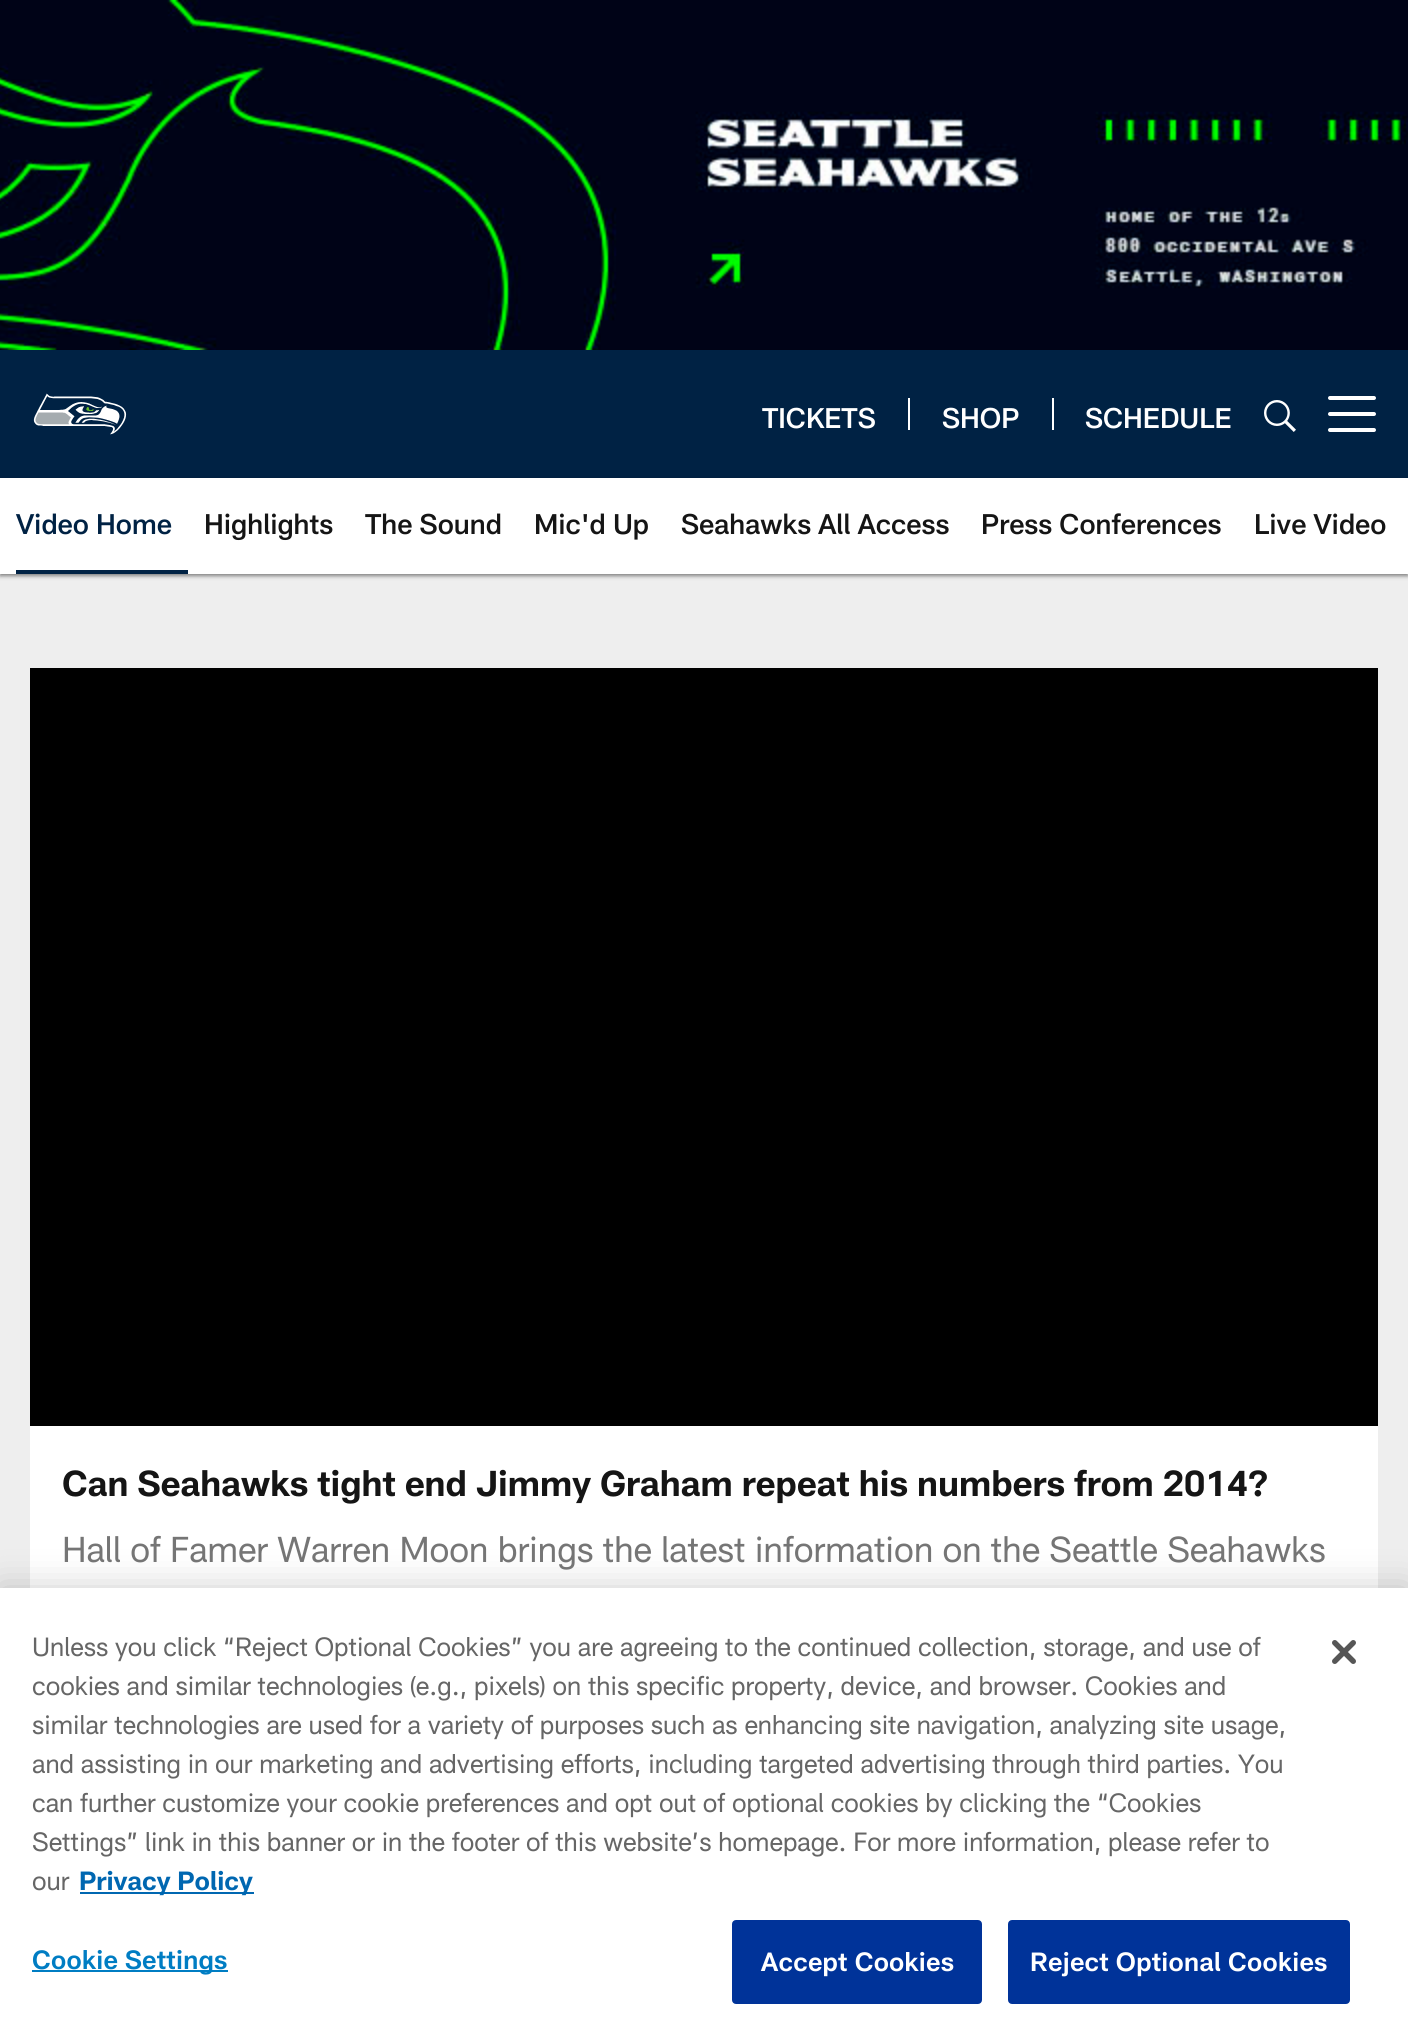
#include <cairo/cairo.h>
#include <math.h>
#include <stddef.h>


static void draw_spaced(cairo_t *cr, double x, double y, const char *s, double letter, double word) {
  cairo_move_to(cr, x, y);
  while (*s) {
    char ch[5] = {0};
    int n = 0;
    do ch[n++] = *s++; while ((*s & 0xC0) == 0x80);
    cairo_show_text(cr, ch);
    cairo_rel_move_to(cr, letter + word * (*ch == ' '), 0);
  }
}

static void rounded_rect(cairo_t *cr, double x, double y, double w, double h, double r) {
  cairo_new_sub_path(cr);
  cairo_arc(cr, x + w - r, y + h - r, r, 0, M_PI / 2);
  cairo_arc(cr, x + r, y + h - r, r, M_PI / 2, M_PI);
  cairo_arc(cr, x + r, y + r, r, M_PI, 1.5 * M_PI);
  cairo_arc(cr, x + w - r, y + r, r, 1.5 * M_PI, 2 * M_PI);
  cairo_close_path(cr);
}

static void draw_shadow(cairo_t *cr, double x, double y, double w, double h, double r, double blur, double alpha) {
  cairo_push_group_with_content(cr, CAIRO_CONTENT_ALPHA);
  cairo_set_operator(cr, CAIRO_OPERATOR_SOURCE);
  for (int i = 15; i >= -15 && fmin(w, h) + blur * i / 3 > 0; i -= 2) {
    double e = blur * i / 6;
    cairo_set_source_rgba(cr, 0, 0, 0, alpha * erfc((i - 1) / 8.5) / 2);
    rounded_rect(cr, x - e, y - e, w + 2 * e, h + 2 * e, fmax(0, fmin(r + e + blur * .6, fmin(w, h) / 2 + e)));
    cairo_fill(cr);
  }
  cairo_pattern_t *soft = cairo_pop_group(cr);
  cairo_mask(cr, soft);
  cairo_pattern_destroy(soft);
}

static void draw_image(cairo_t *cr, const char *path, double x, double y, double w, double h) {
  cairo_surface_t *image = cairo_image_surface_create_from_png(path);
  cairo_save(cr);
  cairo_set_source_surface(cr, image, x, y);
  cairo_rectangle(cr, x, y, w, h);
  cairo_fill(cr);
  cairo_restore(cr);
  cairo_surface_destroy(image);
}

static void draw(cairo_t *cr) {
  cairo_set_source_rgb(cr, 238 / 255.0, 238 / 255.0, 238 / 255.0);
  cairo_paint(cr);
  draw_image(cr, "images/1.png", 0, 0, 1408, 350);
  cairo_set_source_rgb(cr, 0, 0, 0);
  draw_shadow(cr, 0, 352, 1408, 128, 0, 2, 0.47);
  cairo_set_source_rgb(cr, 0, 34 / 255.0, 68 / 255.0);
  cairo_rectangle(cr, 0, 350, 1408, 128);
  cairo_fill(cr);
  draw_image(cr, "images/2.png", 33, 393, 94, 42);
  cairo_set_source_rgb(cr, 1, 1, 1);
  cairo_rectangle(cr, 908, 398, 2, 32);
  cairo_fill(cr);
  cairo_rectangle(cr, 1052, 398, 2, 32);
  cairo_fill(cr);
  draw_image(cr, "images/3.png", 1264, 400, 32, 32);
  rounded_rect(cr, 1328, 412, 48, 4, 2);
  cairo_fill(cr);
  rounded_rect(cr, 1328, 396, 48, 4, 2);
  cairo_fill(cr);
  rounded_rect(cr, 1328, 428, 48, 4, 2);
  cairo_fill(cr);
  cairo_set_source_rgb(cr, 0, 0, 0);
  draw_shadow(cr, 0, 480, 1408, 96, 0, 2, 0.47);
  cairo_set_source_rgb(cr, 1, 1, 1);
  cairo_rectangle(cr, 0, 478, 1408, 96);
  cairo_fill(cr);
  cairo_set_source_rgb(cr, 0, 34 / 255.0, 68 / 255.0);
  cairo_rectangle(cr, 16, 570, 172, 4);
  cairo_fill(cr);
  cairo_set_source_rgb(cr, 1, 1, 1);
  cairo_rectangle(cr, 30, 1426, 1348, 162);
  cairo_fill(cr);
  cairo_set_source_rgb(cr, 0, 0, 0);
  cairo_rectangle(cr, 30, 668, 1348, 758);
  cairo_fill(cr);
  cairo_set_source_rgb(cr, 0, 0, 0);
  draw_shadow(cr, 0, 1588, 1408, 454, 0, 18, 0.2);
  cairo_set_source_rgb(cr, 1, 1, 1);
  cairo_rectangle(cr, 0, 1588, 1408, 454);
  cairo_fill(cr);
  cairo_set_source_rgb(cr, 0, 103 / 255.0, 177 / 255.0);
  cairo_rectangle(cr, 80, 1892, 174, 2);
  cairo_fill(cr);
  cairo_set_source_rgb(cr, 0, 125 / 255.0, 195 / 255.0);
  cairo_rectangle(cr, 32, 1970, 196, 2);
  cairo_fill(cr);
  cairo_set_source_rgb(cr, 0, 51 / 255.0, 153 / 255.0);
  rounded_rect(cr, 733, 1921, 248, 82, 3);
  cairo_fill_preserve(cr);
  cairo_stroke(cr);
  rounded_rect(cr, 1009, 1921, 340, 82, 3);
  cairo_fill_preserve(cr);
  cairo_stroke(cr);
  draw_image(cr, "images/4.png", 1332, 1640, 24, 24);
  cairo_select_font_face(cr, "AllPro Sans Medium", CAIRO_FONT_SLANT_NORMAL, CAIRO_FONT_WEIGHT_NORMAL);
  cairo_set_font_size(cr, 28);
  cairo_set_source_rgb(cr, 1, 1, 1);
  cairo_move_to(cr, 762, 428);
  cairo_show_text(cr, "TICKETS");
  cairo_move_to(cr, 942, 428);
  cairo_show_text(cr, "SHOP");
  cairo_move_to(cr, 1085, 428);
  cairo_show_text(cr, "SCHEDULE");
  cairo_set_source_rgb(cr, 0, 34 / 255.0, 68 / 255.0);
  cairo_move_to(cr, 16, 534);
  cairo_show_text(cr, "Video Home");
  cairo_set_source_rgb(cr, 21 / 255.0, 21 / 255.0, 21 / 255.0);
  cairo_move_to(cr, 204, 534);
  cairo_show_text(cr, "Highlights");
  cairo_move_to(cr, 365, 534);
  cairo_show_text(cr, "The Sound");
  cairo_move_to(cr, 534, 534);
  cairo_show_text(cr, "Mic'd Up");
  cairo_move_to(cr, 681, 534);
  cairo_show_text(cr, "Seahawks All Access");
  cairo_move_to(cr, 981, 534);
  cairo_show_text(cr, "Press Conferences");
  cairo_move_to(cr, 1254, 534);
  cairo_show_text(cr, "Live Video");
  cairo_select_font_face(cr, "AllPro Sans", CAIRO_FONT_SLANT_NORMAL, CAIRO_FONT_WEIGHT_BOLD);
  cairo_set_font_size(cr, 35.45);
  cairo_move_to(cr, 62, 1496);
  cairo_show_text(cr, "Can Seahawks tight end Jimmy Graham repeat his numbers from 2014?");
  cairo_select_font_face(cr, "AllPro Sans", CAIRO_FONT_SLANT_NORMAL, CAIRO_FONT_WEIGHT_NORMAL);
  cairo_set_source_rgb(cr, 117 / 255.0, 117 / 255.0, 117 / 255.0);
  cairo_move_to(cr, 62, 1562);
  cairo_show_text(cr, "Hall of Famer Warren Moon brings the latest information on the Seattle Seahawks");
  cairo_set_font_size(cr, 26);
  cairo_set_source_rgb(cr, 102 / 255.0, 102 / 255.0, 102 / 255.0);
  cairo_move_to(cr, 32, 1656);
  cairo_show_text(cr, "Unless you click “Reject Optional Cookies” you are agreeing to the continued collection, storage, and use of");
  cairo_move_to(cr, 32, 1695);
  cairo_show_text(cr, "cookies and similar technologies (e.g., pixels) on this specific property, device, and browser. Cookies and");
  cairo_move_to(cr, 32, 1734);
  cairo_show_text(cr, "similar technologies are used for a variety of purposes such as enhancing site navigation, analyzing site usage,");
  cairo_move_to(cr, 32, 1773);
  cairo_show_text(cr, "and assisting in our marketing and advertising efforts, including targeted advertising through third parties. You");
  cairo_move_to(cr, 32, 1812);
  cairo_show_text(cr, "can further customize your cookie preferences and opt out of optional cookies by clicking the “Cookies");
  cairo_move_to(cr, 32, 1851);
  cairo_show_text(cr, "Settings” link in this banner or in the footer of this website’s homepage. For more information, please refer to");
  cairo_move_to(cr, 32, 1890);
  cairo_show_text(cr, "our");
  cairo_select_font_face(cr, "AllPro Sans", CAIRO_FONT_SLANT_NORMAL, CAIRO_FONT_WEIGHT_BOLD);
  cairo_set_source_rgb(cr, 0, 103 / 255.0, 177 / 255.0);
  cairo_move_to(cr, 79, 1890);
  cairo_show_text(cr, "Privacy Policy");
  cairo_select_font_face(cr, "AllPro Sans SemiBold", CAIRO_FONT_SLANT_NORMAL, CAIRO_FONT_WEIGHT_NORMAL);
  cairo_set_source_rgb(cr, 0, 125 / 255.0, 195 / 255.0);
  draw_spaced(cr, 32, 1969, "Cookie Settings", 0.25, 0);
  cairo_set_source_rgb(cr, 1, 1, 1);
  draw_spaced(cr, 761, 1971, "Accept Cookies", 0.25, 0);
  draw_spaced(cr, 1030, 1971, "Reject Optional Cookies", 0.25, 0);
}

int main(void) {
  cairo_surface_t *surface = cairo_image_surface_create(CAIRO_FORMAT_RGB24, 1408, 2042);
  cairo_t *cr = cairo_create(surface);
  cairo_font_options_t *options = cairo_font_options_create();
  cairo_font_options_set_hint_metrics(options, CAIRO_HINT_METRICS_OFF);
  cairo_font_options_set_hint_style(options, CAIRO_HINT_STYLE_NONE);
  cairo_set_font_options(cr, options);
  cairo_set_miter_limit(cr, 4);
  draw(cr);
  cairo_surface_write_to_png(surface, "out.png");
  cairo_font_options_destroy(options);
  cairo_destroy(cr);
  cairo_surface_destroy(surface);
  return 0;
}
